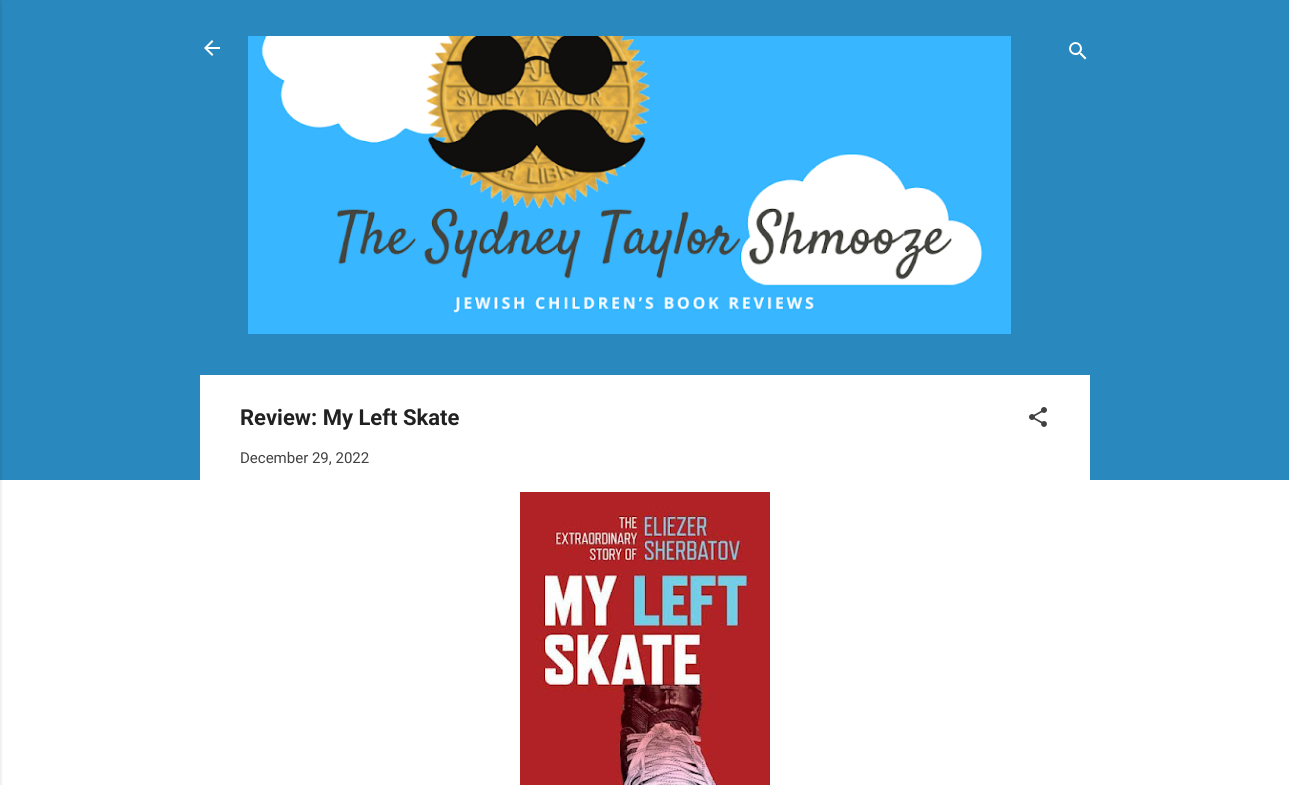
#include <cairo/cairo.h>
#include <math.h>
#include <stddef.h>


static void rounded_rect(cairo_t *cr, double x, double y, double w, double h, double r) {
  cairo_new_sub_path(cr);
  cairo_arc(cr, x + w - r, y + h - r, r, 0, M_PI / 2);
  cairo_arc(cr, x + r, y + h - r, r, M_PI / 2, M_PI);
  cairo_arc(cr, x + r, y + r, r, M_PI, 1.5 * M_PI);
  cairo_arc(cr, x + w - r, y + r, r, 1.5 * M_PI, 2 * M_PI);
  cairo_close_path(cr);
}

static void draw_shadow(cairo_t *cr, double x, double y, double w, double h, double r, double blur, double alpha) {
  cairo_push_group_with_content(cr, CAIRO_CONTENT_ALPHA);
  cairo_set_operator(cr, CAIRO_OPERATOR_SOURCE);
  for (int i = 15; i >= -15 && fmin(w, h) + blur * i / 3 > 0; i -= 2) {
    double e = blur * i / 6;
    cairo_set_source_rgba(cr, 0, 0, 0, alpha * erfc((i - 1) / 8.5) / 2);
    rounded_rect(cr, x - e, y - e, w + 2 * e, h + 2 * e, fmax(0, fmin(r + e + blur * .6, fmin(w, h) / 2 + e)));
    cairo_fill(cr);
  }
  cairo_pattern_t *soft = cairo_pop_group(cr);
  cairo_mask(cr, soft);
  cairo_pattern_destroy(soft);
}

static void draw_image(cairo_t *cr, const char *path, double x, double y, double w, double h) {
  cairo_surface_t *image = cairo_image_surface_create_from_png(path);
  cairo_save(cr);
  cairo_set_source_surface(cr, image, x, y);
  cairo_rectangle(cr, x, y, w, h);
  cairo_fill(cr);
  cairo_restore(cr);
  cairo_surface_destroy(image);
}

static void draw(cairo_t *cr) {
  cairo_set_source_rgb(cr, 1, 1, 1);
  cairo_paint(cr);
  cairo_set_source_rgb(cr, 41 / 255.0, 136 / 255.0, 189 / 255.0);
  cairo_rectangle(cr, 0, 0, 1289, 480);
  cairo_fill(cr);
  cairo_set_source_rgb(cr, 0, 0, 0);
  draw_shadow(cr, -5, 1, 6, 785, 0, 1.5, 0.1);
  draw_image(cr, "images/1.png", 204, 40, 16, 16);
  draw_image(cr, "images/2.png", 248, 36, 763, 298);
  draw_image(cr, "images/3.png", 1069, 42, 18, 18);
  cairo_set_source_rgb(cr, 1, 1, 1);
  cairo_rectangle(cr, 200, 375, 890, 105);
  cairo_fill(cr);
  draw_image(cr, "images/4.png", 1029, 407, 18, 20);
  draw_image(cr, "images/5.png", 520, 492, 250, 293);
  cairo_select_font_face(cr, "Roboto", CAIRO_FONT_SLANT_NORMAL, CAIRO_FONT_WEIGHT_BOLD);
  cairo_set_font_size(cr, 22);
  cairo_set_source_rgb(cr, 33 / 255.0, 33 / 255.0, 33 / 255.0);
  cairo_move_to(cr, 240, 425);
  cairo_show_text(cr, "Review: My Left Skate");
  cairo_select_font_face(cr, "Roboto", CAIRO_FONT_SLANT_NORMAL, CAIRO_FONT_WEIGHT_NORMAL);
  cairo_set_font_size(cr, 15);
  cairo_set_source_rgb(cr, 65 / 255.0, 65 / 255.0, 65 / 255.0);
  cairo_move_to(cr, 240, 463);
  cairo_show_text(cr, "December 29, 2022");
}

int main(void) {
  cairo_surface_t *surface = cairo_image_surface_create(CAIRO_FORMAT_RGB24, 1289, 785);
  cairo_t *cr = cairo_create(surface);
  cairo_font_options_t *options = cairo_font_options_create();
  cairo_font_options_set_hint_metrics(options, CAIRO_HINT_METRICS_OFF);
  cairo_font_options_set_hint_style(options, CAIRO_HINT_STYLE_NONE);
  cairo_set_font_options(cr, options);
  cairo_set_miter_limit(cr, 4);
  draw(cr);
  cairo_surface_write_to_png(surface, "out.png");
  cairo_font_options_destroy(options);
  cairo_destroy(cr);
  cairo_surface_destroy(surface);
  return 0;
}
